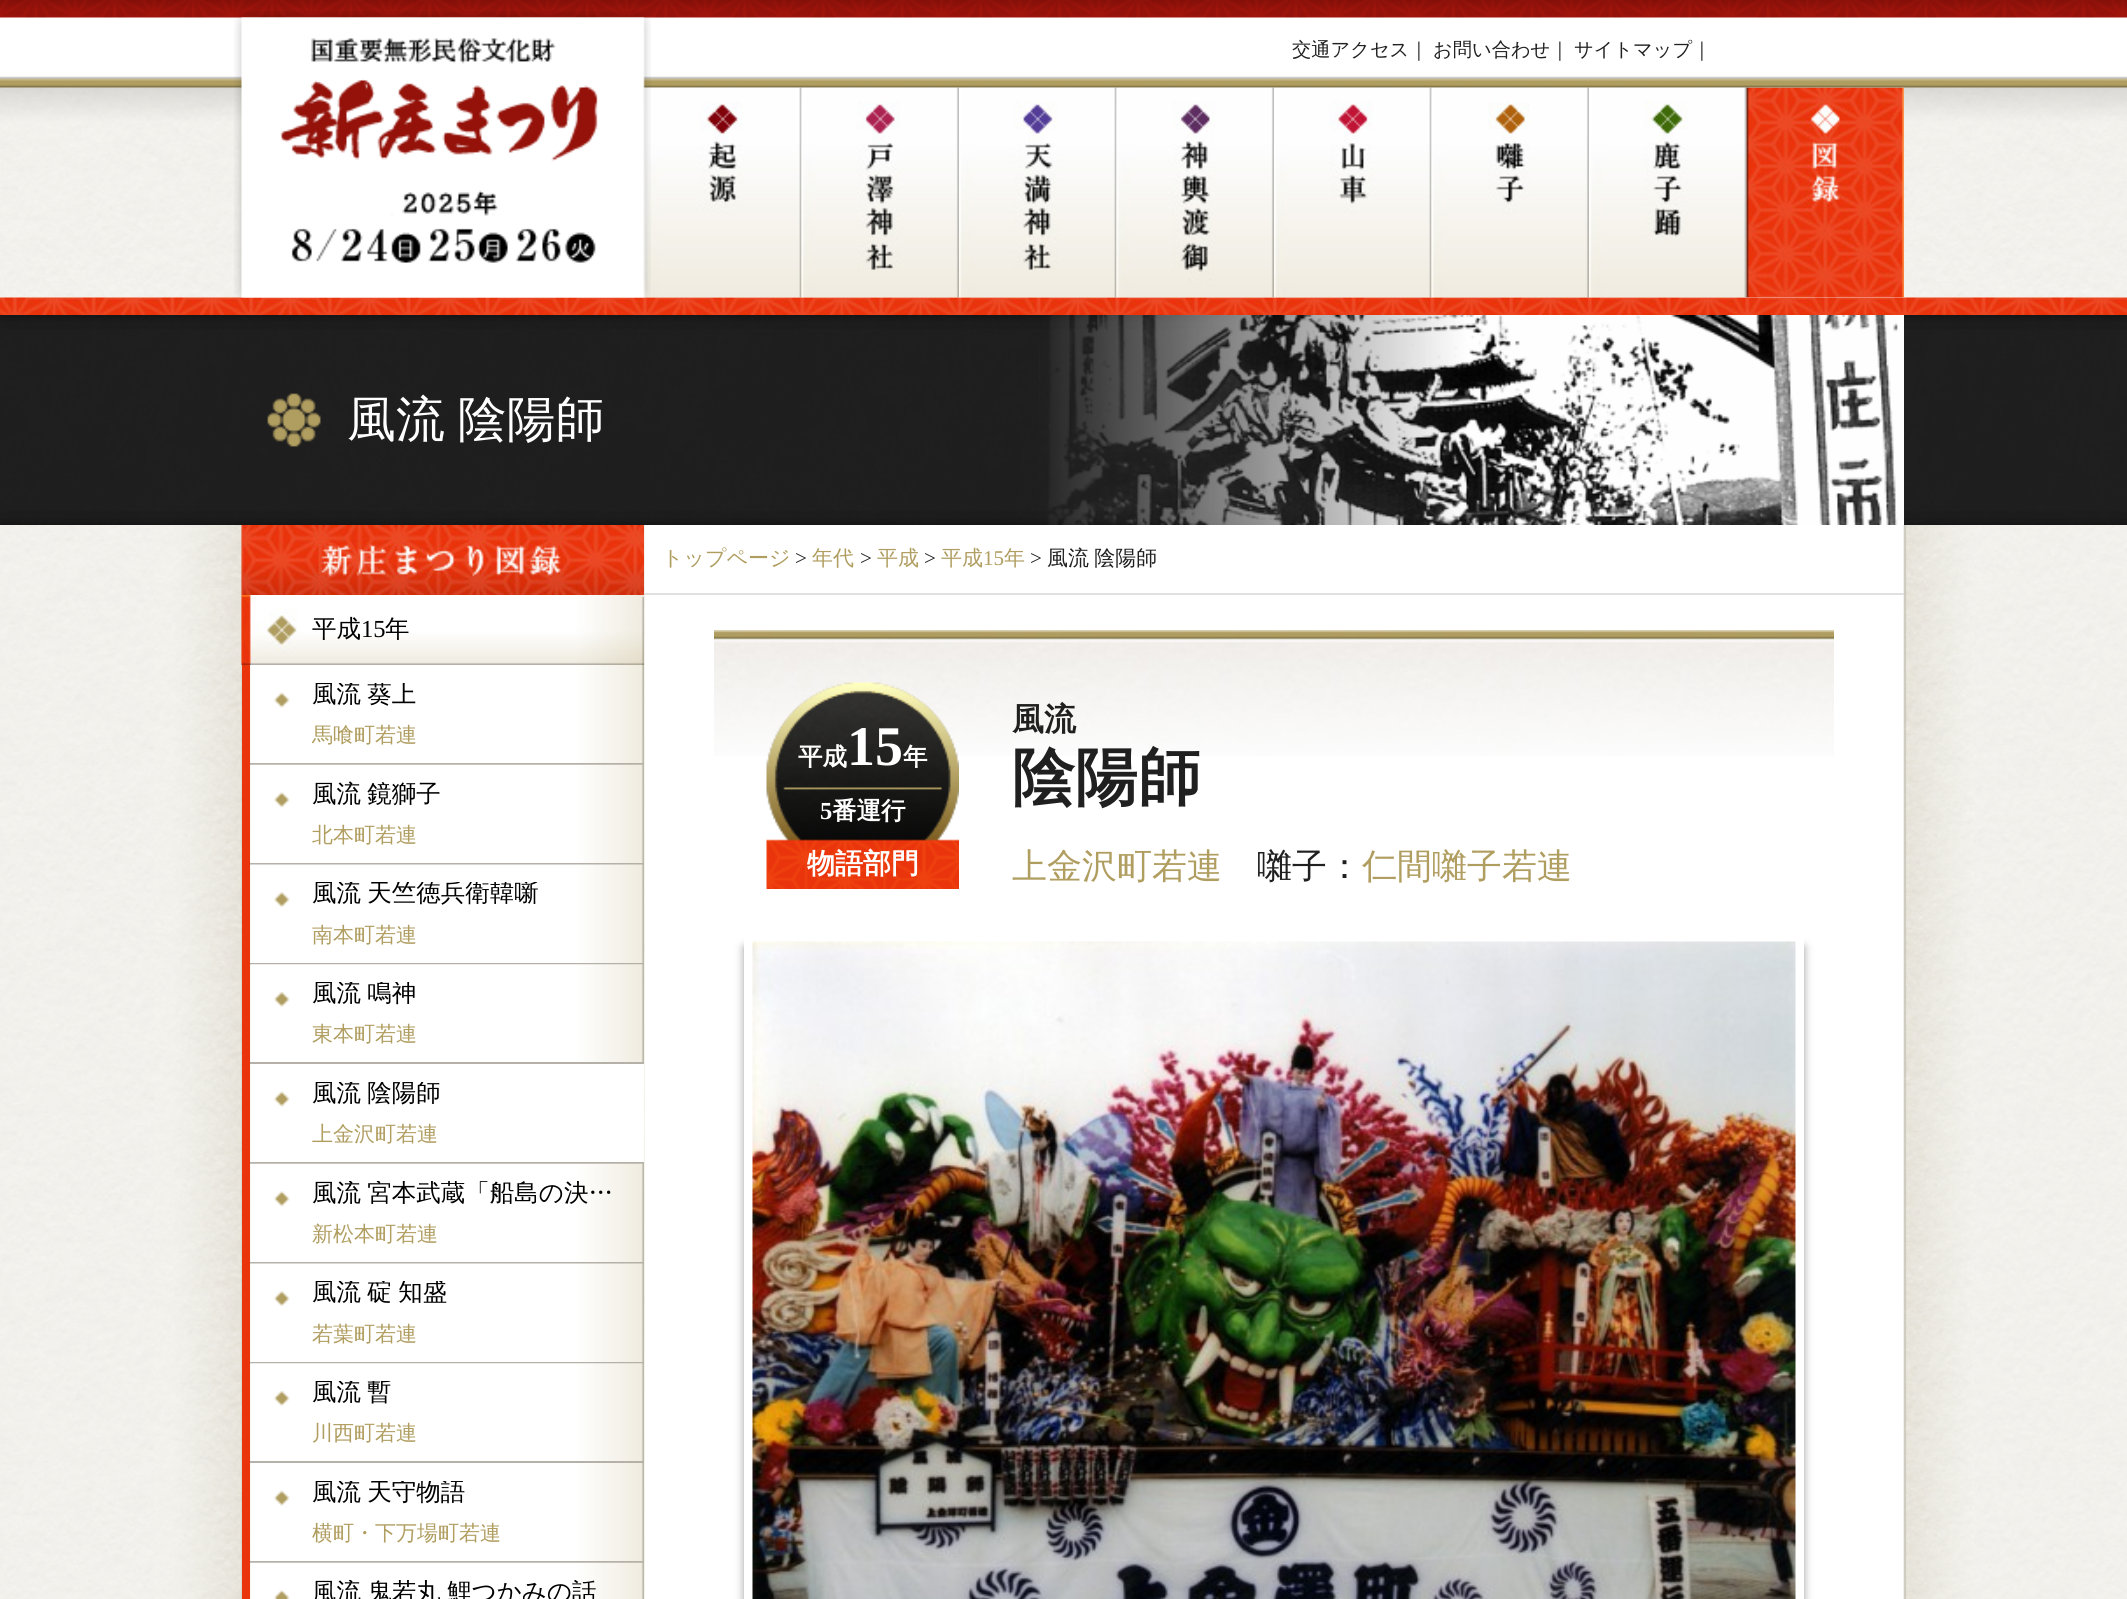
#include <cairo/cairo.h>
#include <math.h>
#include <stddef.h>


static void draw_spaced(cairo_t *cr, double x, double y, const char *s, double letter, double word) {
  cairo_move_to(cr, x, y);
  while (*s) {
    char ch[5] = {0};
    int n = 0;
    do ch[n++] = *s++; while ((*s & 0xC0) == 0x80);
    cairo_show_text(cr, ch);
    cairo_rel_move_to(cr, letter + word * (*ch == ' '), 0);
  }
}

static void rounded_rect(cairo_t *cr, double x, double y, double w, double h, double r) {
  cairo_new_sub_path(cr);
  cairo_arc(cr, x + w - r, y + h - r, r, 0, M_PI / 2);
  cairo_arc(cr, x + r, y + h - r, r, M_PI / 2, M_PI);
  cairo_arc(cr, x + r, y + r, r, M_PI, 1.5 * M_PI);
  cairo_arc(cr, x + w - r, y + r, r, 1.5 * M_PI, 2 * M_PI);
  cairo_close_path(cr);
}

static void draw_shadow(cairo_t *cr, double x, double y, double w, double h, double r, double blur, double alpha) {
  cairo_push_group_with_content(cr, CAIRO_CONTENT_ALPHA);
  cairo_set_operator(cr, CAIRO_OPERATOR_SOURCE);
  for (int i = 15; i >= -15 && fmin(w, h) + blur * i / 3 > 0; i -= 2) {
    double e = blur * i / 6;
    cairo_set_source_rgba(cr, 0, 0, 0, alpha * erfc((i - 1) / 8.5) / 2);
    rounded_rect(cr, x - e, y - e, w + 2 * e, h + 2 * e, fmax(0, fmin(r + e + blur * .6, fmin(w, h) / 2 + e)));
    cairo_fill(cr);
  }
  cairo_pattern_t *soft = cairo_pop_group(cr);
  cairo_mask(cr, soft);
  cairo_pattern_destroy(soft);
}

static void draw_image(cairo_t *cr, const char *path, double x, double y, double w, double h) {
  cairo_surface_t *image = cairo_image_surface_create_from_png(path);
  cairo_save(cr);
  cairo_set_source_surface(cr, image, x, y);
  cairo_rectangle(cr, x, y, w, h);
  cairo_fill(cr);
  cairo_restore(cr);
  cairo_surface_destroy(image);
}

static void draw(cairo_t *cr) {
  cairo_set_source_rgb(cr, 1, 1, 1);
  cairo_paint(cr);
  draw_image(cr, "images/1.png", 0, 297, 2127, 1302);
  draw_image(cr, "images/2.png", 0, 0, 2127, 297);
  draw_image(cr, "images/14.png", 0, 297, 2127, 18);
  draw_image(cr, "images/6.png", 644, 87, 158, 211);
  draw_image(cr, "images/3.png", 234, 11, 417, 287);
  draw_image(cr, "images/4.png", 280, 38, 318, 124);
  draw_image(cr, "images/5.png", 291, 190, 305, 73);
  draw_image(cr, "images/7.png", 801, 87, 158, 211);
  draw_image(cr, "images/8.png", 959, 87, 158, 211);
  draw_image(cr, "images/9.png", 1116, 87, 158, 211);
  draw_image(cr, "images/10.png", 1274, 87, 158, 211);
  draw_image(cr, "images/11.png", 1431, 87, 158, 211);
  draw_image(cr, "images/12.png", 1589, 87, 158, 211);
  draw_image(cr, "images/13.png", 1746, 87, 158, 211);
  draw_image(cr, "images/15.png", 0, 315, 2127, 210);
  draw_image(cr, "images/16.png", 1039, 315, 865, 210);
  draw_image(cr, "images/17.png", 267, 393, 54, 54);
  draw_image(cr, "images/18.png", 154, 525, 1820, 1074);
  draw_image(cr, "images/19.png", 241, 525, 403, 70);
  draw_image(cr, "images/20.png", 241, 595, 403, 70);
  cairo_set_source_rgb(cr, 234 / 255.0, 52 / 255.0, 12 / 255.0);
  cairo_rectangle(cr, 242, 665, 8, 934);
  cairo_fill(cr);
  draw_image(cr, "images/21.png", 250, 665, 394, 98);
  cairo_set_source_rgb(cr, 181 / 255.0, 177 / 255.0, 168 / 255.0);
  cairo_rectangle(cr, 250, 763, 394, 2);
  cairo_fill(cr);
  draw_image(cr, "images/22.png", 250, 764, 394, 99);
  cairo_rectangle(cr, 250, 863, 394, 2);
  cairo_fill(cr);
  draw_image(cr, "images/23.png", 250, 864, 394, 99);
  cairo_rectangle(cr, 250, 963, 394, 2);
  cairo_fill(cr);
  draw_image(cr, "images/24.png", 250, 964, 394, 98);
  cairo_rectangle(cr, 250, 1062, 394, 2);
  cairo_fill(cr);
  draw_image(cr, "images/25.png", 250, 1064, 394, 98);
  cairo_rectangle(cr, 250, 1162, 394, 2);
  cairo_fill(cr);
  draw_image(cr, "images/26.png", 250, 1163, 394, 99);
  cairo_rectangle(cr, 250, 1262, 394, 2);
  cairo_fill(cr);
  draw_image(cr, "images/27.png", 250, 1263, 394, 99);
  cairo_rectangle(cr, 250, 1362, 394, 2);
  cairo_fill(cr);
  draw_image(cr, "images/28.png", 250, 1363, 394, 98);
  cairo_rectangle(cr, 250, 1461, 394, 2);
  cairo_fill(cr);
  draw_image(cr, "images/29.png", 250, 1463, 394, 98);
  cairo_rectangle(cr, 250, 1561, 394, 2);
  cairo_fill(cr);
  draw_image(cr, "images/30.png", 250, 1562, 394, 37);
  cairo_set_source_rgb(cr, 224 / 255.0, 224 / 255.0, 224 / 255.0);
  cairo_rectangle(cr, 644, 593, 1260, 2);
  cairo_fill(cr);
  draw_image(cr, "images/31.png", 714, 630, 1120, 126);
  draw_image(cr, "images/32.png", 766, 682, 193, 207);
  cairo_save(cr);
  cairo_set_fill_rule(cr, CAIRO_FILL_RULE_EVEN_ODD);
  cairo_new_path(cr);
  cairo_move_to(cr, 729, 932);
  cairo_line_to(cr, 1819, 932);
  cairo_line_to(cr, 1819, 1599);
  cairo_line_to(cr, 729, 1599);
  cairo_close_path(cr);
  cairo_move_to(cr, 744, 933);
  cairo_line_to(cr, 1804, 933);
  cairo_line_to(cr, 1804, 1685);
  cairo_line_to(cr, 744, 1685);
  cairo_close_path(cr);
  cairo_clip(cr);
  cairo_set_source_rgb(cr, 160 / 255.0, 160 / 255.0, 160 / 255.0);
  draw_shadow(cr, 744, 947, 1060, 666, 0, 4.5, 1);
  cairo_restore(cr);
  draw_image(cr, "images/33.png", 752, 941, 1044, 658);
  cairo_select_font_face(cr, "WenQuanYi Zen Hei Medium", CAIRO_FONT_SLANT_NORMAL, CAIRO_FONT_WEIGHT_NORMAL);
  cairo_set_font_size(cr, 19.25);
  cairo_set_source_rgb(cr, 32 / 255.0, 32 / 255.0, 32 / 255.0);
  cairo_move_to(cr, 1292, 56);
  cairo_show_text(cr, "交通アクセス｜");
  cairo_move_to(cr, 1433, 56);
  cairo_show_text(cr, "お問い合わせ｜");
  cairo_move_to(cr, 1574, 56);
  cairo_show_text(cr, "サイトマップ｜");
  cairo_set_font_size(cr, 49);
  cairo_set_source_rgb(cr, 1, 1, 1);
  draw_spaced(cr, 347, 436, "風流 陰陽師", 0, -2);
  cairo_set_font_size(cr, 24.5);
  cairo_set_source_rgb(cr, 0, 0, 0);
  cairo_move_to(cr, 312, 637);
  cairo_show_text(cr, "平成");
  cairo_select_font_face(cr, "Liberation Serif", CAIRO_FONT_SLANT_NORMAL, CAIRO_FONT_WEIGHT_NORMAL);
  cairo_move_to(cr, 361, 637);
  cairo_show_text(cr, "15");
  cairo_select_font_face(cr, "WenQuanYi Zen Hei Medium", CAIRO_FONT_SLANT_NORMAL, CAIRO_FONT_WEIGHT_NORMAL);
  cairo_move_to(cr, 385, 637);
  cairo_show_text(cr, "年");
  cairo_save(cr);
  cairo_rectangle(cr, 312, 683, 323, 63);
  cairo_clip(cr);
  draw_spaced(cr, 312, 702, "風流 葵上", 0, -1);
  cairo_restore(cr);
  cairo_set_font_size(cr, 21);
  cairo_set_source_rgb(cr, 176 / 255.0, 157 / 255.0, 96 / 255.0);
  cairo_move_to(cr, 312, 742);
  cairo_show_text(cr, "馬喰町若連");
  cairo_set_font_size(cr, 24.5);
  cairo_set_source_rgb(cr, 0, 0, 0);
  draw_spaced(cr, 312, 802, "風流 鏡獅子", 0, -1);
  cairo_set_font_size(cr, 21);
  cairo_set_source_rgb(cr, 176 / 255.0, 157 / 255.0, 96 / 255.0);
  cairo_move_to(cr, 312, 842);
  cairo_show_text(cr, "北本町若連");
  cairo_save(cr);
  cairo_rectangle(cr, 312, 882, 323, 63);
  cairo_clip(cr);
  cairo_set_font_size(cr, 24.5);
  cairo_set_source_rgb(cr, 0, 0, 0);
  draw_spaced(cr, 312, 901, "風流 天竺徳兵衛韓噺", 0, -1);
  cairo_restore(cr);
  cairo_move_to(cr, 312, 942);
  cairo_show_text(cr, "南本町若連");
  cairo_save(cr);
  cairo_rectangle(cr, 312, 982, 323, 63);
  cairo_clip(cr);
  cairo_set_font_size(cr, 24.5);
  cairo_set_source_rgb(cr, 0, 0, 0);
  draw_spaced(cr, 312, 1001, "風流 鳴神", 0, -1);
  cairo_restore(cr);
  cairo_move_to(cr, 312, 1041);
  cairo_show_text(cr, "東本町若連");
  cairo_save(cr);
  cairo_rectangle(cr, 312, 1082, 323, 63);
  cairo_clip(cr);
  cairo_set_font_size(cr, 24.5);
  cairo_set_source_rgb(cr, 0, 0, 0);
  draw_spaced(cr, 312, 1101, "風流 陰陽師", 0, -1);
  cairo_restore(cr);
  cairo_move_to(cr, 312, 1141);
  cairo_show_text(cr, "上金沢町若連");
  cairo_save(cr);
  cairo_rectangle(cr, 312, 1181, 323, 63);
  cairo_clip(cr);
  cairo_set_font_size(cr, 24.5);
  cairo_set_source_rgb(cr, 0, 0, 0);
  draw_spaced(cr, 312, 1201, "風流 宮本武蔵「船島の決…", 0, -1);
  cairo_restore(cr);
  cairo_move_to(cr, 312, 1241);
  cairo_show_text(cr, "新松本町若連");
  cairo_save(cr);
  cairo_rectangle(cr, 312, 1281, 323, 63);
  cairo_clip(cr);
  cairo_set_font_size(cr, 24.5);
  cairo_set_source_rgb(cr, 0, 0, 0);
  draw_spaced(cr, 312, 1300, "風流 碇 知盛", 0, -1);
  cairo_restore(cr);
  cairo_move_to(cr, 312, 1341);
  cairo_show_text(cr, "若葉町若連");
  cairo_save(cr);
  cairo_rectangle(cr, 312, 1381, 323, 63);
  cairo_clip(cr);
  cairo_set_font_size(cr, 24.5);
  cairo_set_source_rgb(cr, 0, 0, 0);
  draw_spaced(cr, 312, 1400, "風流 暫", 0, -1);
  cairo_restore(cr);
  cairo_move_to(cr, 312, 1440);
  cairo_show_text(cr, "川西町若連");
  cairo_save(cr);
  cairo_rectangle(cr, 312, 1481, 323, 63);
  cairo_clip(cr);
  cairo_set_font_size(cr, 24.5);
  cairo_set_source_rgb(cr, 0, 0, 0);
  draw_spaced(cr, 312, 1500, "風流 天守物語", 0, -1);
  cairo_restore(cr);
  cairo_move_to(cr, 312, 1540);
  cairo_show_text(cr, "横町・下万場町若連");
  cairo_save(cr);
  cairo_rectangle(cr, 312, 1580, 323, 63);
  cairo_clip(cr);
  cairo_set_font_size(cr, 24.5);
  cairo_set_source_rgb(cr, 0, 0, 0);
  draw_spaced(cr, 312, 1600, "風流 鬼若丸 鯉つかみの話", 0, -1);
  cairo_restore(cr);
  cairo_move_to(cr, 662, 565);
  cairo_show_text(cr, "トップページ");
  cairo_select_font_face(cr, "Liberation Serif", CAIRO_FONT_SLANT_NORMAL, CAIRO_FONT_WEIGHT_NORMAL);
  cairo_set_source_rgb(cr, 32 / 255.0, 32 / 255.0, 32 / 255.0);
  cairo_move_to(cr, 795, 565);
  cairo_show_text(cr, ">");
  cairo_select_font_face(cr, "WenQuanYi Zen Hei Medium", CAIRO_FONT_SLANT_NORMAL, CAIRO_FONT_WEIGHT_NORMAL);
  cairo_set_source_rgb(cr, 176 / 255.0, 157 / 255.0, 96 / 255.0);
  cairo_move_to(cr, 812, 565);
  cairo_show_text(cr, "年代");
  cairo_select_font_face(cr, "Liberation Serif", CAIRO_FONT_SLANT_NORMAL, CAIRO_FONT_WEIGHT_NORMAL);
  cairo_set_source_rgb(cr, 32 / 255.0, 32 / 255.0, 32 / 255.0);
  cairo_move_to(cr, 860, 565);
  cairo_show_text(cr, ">");
  cairo_select_font_face(cr, "WenQuanYi Zen Hei Medium", CAIRO_FONT_SLANT_NORMAL, CAIRO_FONT_WEIGHT_NORMAL);
  cairo_set_source_rgb(cr, 176 / 255.0, 157 / 255.0, 96 / 255.0);
  cairo_move_to(cr, 877, 565);
  cairo_show_text(cr, "平成");
  cairo_select_font_face(cr, "Liberation Serif", CAIRO_FONT_SLANT_NORMAL, CAIRO_FONT_WEIGHT_NORMAL);
  cairo_set_source_rgb(cr, 32 / 255.0, 32 / 255.0, 32 / 255.0);
  cairo_move_to(cr, 924, 565);
  cairo_show_text(cr, ">");
  cairo_select_font_face(cr, "WenQuanYi Zen Hei Medium", CAIRO_FONT_SLANT_NORMAL, CAIRO_FONT_WEIGHT_NORMAL);
  cairo_set_source_rgb(cr, 176 / 255.0, 157 / 255.0, 96 / 255.0);
  cairo_move_to(cr, 941, 565);
  cairo_show_text(cr, "平成");
  cairo_select_font_face(cr, "Liberation Serif", CAIRO_FONT_SLANT_NORMAL, CAIRO_FONT_WEIGHT_NORMAL);
  cairo_move_to(cr, 983, 565);
  cairo_show_text(cr, "15");
  cairo_select_font_face(cr, "WenQuanYi Zen Hei Medium", CAIRO_FONT_SLANT_NORMAL, CAIRO_FONT_WEIGHT_NORMAL);
  cairo_move_to(cr, 1004, 565);
  cairo_show_text(cr, "年");
  cairo_select_font_face(cr, "Liberation Serif", CAIRO_FONT_SLANT_NORMAL, CAIRO_FONT_WEIGHT_NORMAL);
  cairo_set_source_rgb(cr, 32 / 255.0, 32 / 255.0, 32 / 255.0);
  cairo_move_to(cr, 1030, 565);
  cairo_show_text(cr, ">");
  cairo_select_font_face(cr, "WenQuanYi Zen Hei Medium", CAIRO_FONT_SLANT_NORMAL, CAIRO_FONT_WEIGHT_NORMAL);
  draw_spaced(cr, 1047, 565, "風流 陰陽師", 0, -1);
  cairo_select_font_face(cr, "WenQuanYi Zen Hei", CAIRO_FONT_SLANT_NORMAL, CAIRO_FONT_WEIGHT_BOLD);
  cairo_set_font_size(cr, 24.5);
  cairo_set_source_rgb(cr, 1, 1, 1);
  cairo_move_to(cr, 798, 765);
  cairo_show_text(cr, "平成");
  cairo_select_font_face(cr, "Liberation Serif", CAIRO_FONT_SLANT_NORMAL, CAIRO_FONT_WEIGHT_BOLD);
  cairo_set_font_size(cr, 56);
  cairo_move_to(cr, 847, 765);
  cairo_show_text(cr, "15");
  cairo_select_font_face(cr, "WenQuanYi Zen Hei", CAIRO_FONT_SLANT_NORMAL, CAIRO_FONT_WEIGHT_BOLD);
  cairo_set_font_size(cr, 24.5);
  cairo_move_to(cr, 903, 765);
  cairo_show_text(cr, "年");
  cairo_select_font_face(cr, "Liberation Serif", CAIRO_FONT_SLANT_NORMAL, CAIRO_FONT_WEIGHT_BOLD);
  cairo_move_to(cr, 820, 819);
  cairo_show_text(cr, "5");
  cairo_select_font_face(cr, "WenQuanYi Zen Hei", CAIRO_FONT_SLANT_NORMAL, CAIRO_FONT_WEIGHT_BOLD);
  cairo_move_to(cr, 832, 819);
  cairo_show_text(cr, "番運行");
  cairo_set_font_size(cr, 28);
  cairo_move_to(cr, 807, 873);
  cairo_show_text(cr, "物語部門");
  cairo_set_font_size(cr, 32);
  cairo_set_source_rgb(cr, 32 / 255.0, 32 / 255.0, 32 / 255.0);
  cairo_move_to(cr, 1012, 730);
  cairo_show_text(cr, "風流");
  cairo_set_font_size(cr, 63);
  cairo_move_to(cr, 1012, 799);
  cairo_show_text(cr, "陰陽師");
  cairo_select_font_face(cr, "WenQuanYi Zen Hei Medium", CAIRO_FONT_SLANT_NORMAL, CAIRO_FONT_WEIGHT_NORMAL);
  cairo_set_font_size(cr, 35);
  cairo_set_source_rgb(cr, 176 / 255.0, 157 / 255.0, 96 / 255.0);
  cairo_move_to(cr, 1012, 878);
  cairo_show_text(cr, "上金沢町若連");
  cairo_set_source_rgb(cr, 32 / 255.0, 32 / 255.0, 32 / 255.0);
  cairo_move_to(cr, 1257, 878);
  cairo_show_text(cr, "囃子：");
  cairo_set_source_rgb(cr, 176 / 255.0, 157 / 255.0, 96 / 255.0);
  cairo_move_to(cr, 1362, 878);
  cairo_show_text(cr, "仁間囃子若連");
}

int main(void) {
  cairo_surface_t *surface = cairo_image_surface_create(CAIRO_FORMAT_RGB24, 2127, 1599);
  cairo_t *cr = cairo_create(surface);
  cairo_font_options_t *options = cairo_font_options_create();
  cairo_font_options_set_hint_metrics(options, CAIRO_HINT_METRICS_OFF);
  cairo_font_options_set_hint_style(options, CAIRO_HINT_STYLE_NONE);
  cairo_set_font_options(cr, options);
  cairo_set_miter_limit(cr, 4);
  draw(cr);
  cairo_surface_write_to_png(surface, "out.png");
  cairo_font_options_destroy(options);
  cairo_destroy(cr);
  cairo_surface_destroy(surface);
  return 0;
}
